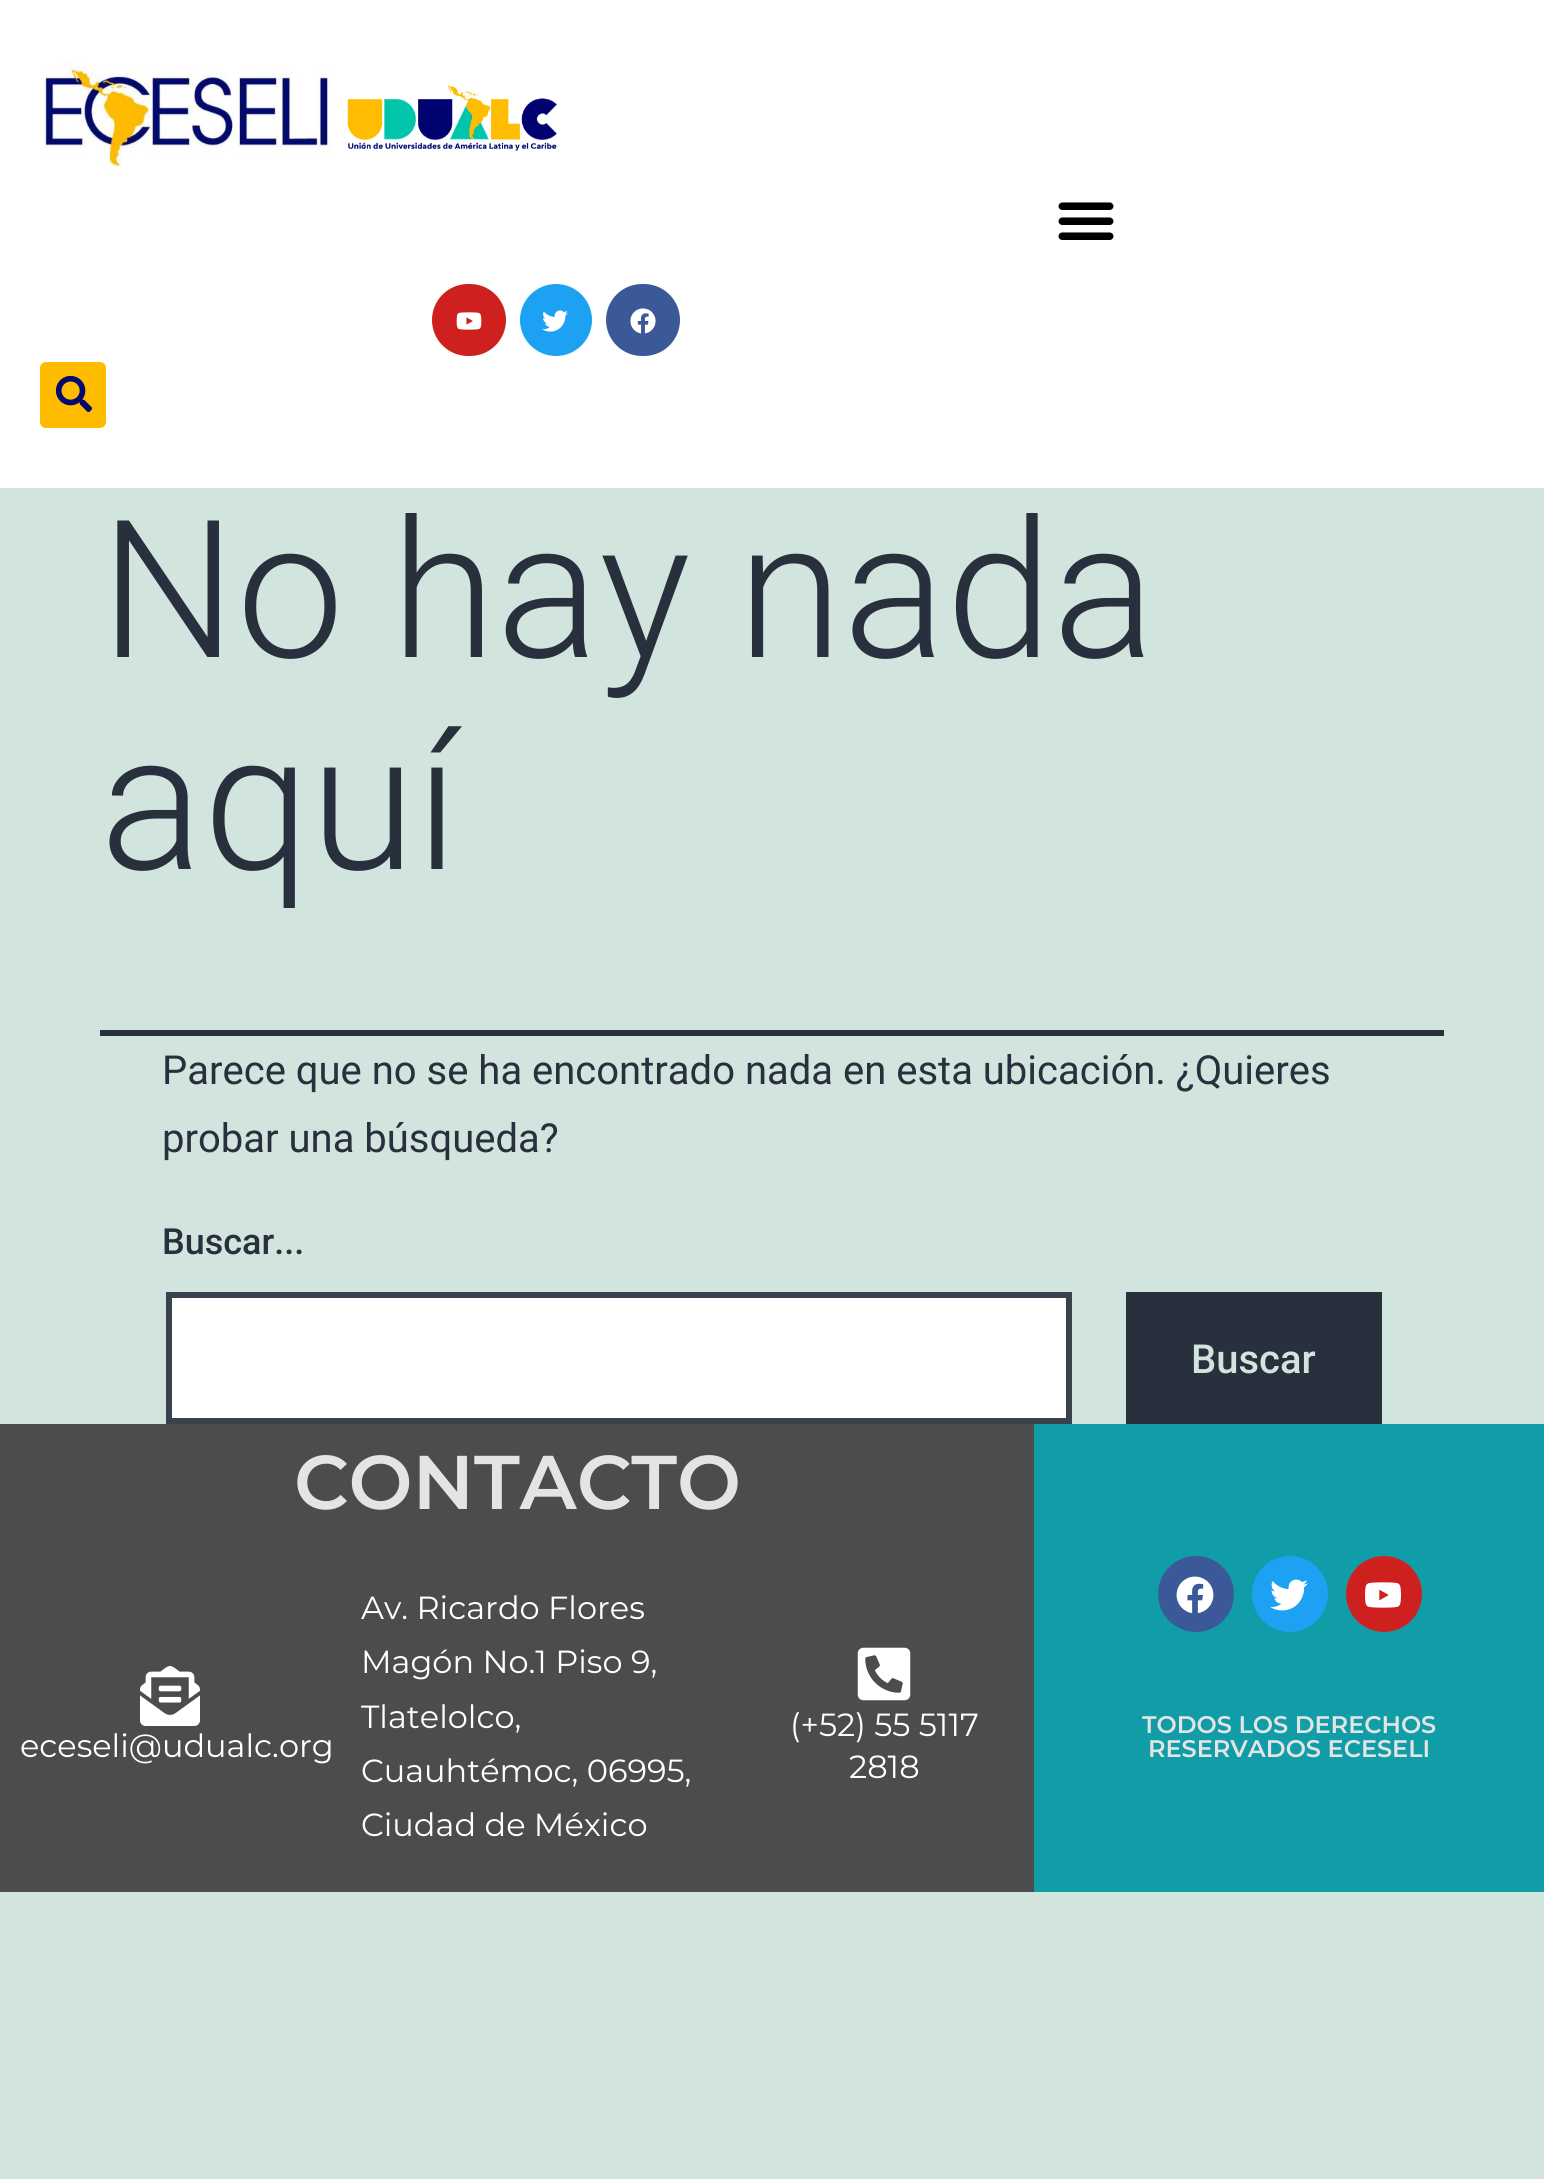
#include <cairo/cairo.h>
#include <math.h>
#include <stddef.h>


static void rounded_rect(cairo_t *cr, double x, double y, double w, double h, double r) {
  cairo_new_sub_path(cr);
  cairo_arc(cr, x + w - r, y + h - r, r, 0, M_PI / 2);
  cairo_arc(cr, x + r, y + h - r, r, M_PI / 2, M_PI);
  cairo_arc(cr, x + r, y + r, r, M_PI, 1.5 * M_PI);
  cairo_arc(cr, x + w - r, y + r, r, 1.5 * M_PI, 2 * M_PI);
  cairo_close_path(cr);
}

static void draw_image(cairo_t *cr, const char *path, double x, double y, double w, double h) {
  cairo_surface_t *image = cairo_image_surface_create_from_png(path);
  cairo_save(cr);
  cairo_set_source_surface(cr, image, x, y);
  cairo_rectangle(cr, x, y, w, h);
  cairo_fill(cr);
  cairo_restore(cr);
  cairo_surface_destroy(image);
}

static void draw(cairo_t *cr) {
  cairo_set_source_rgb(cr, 209 / 255.0, 228 / 255.0, 221 / 255.0);
  cairo_paint(cr);
  cairo_set_source_rgb(cr, 1, 1, 1);
  cairo_rectangle(cr, 0, 0, 1544, 488);
  cairo_fill(cr);
  draw_image(cr, "images/1.png", 40, 60, 292, 110);
  draw_image(cr, "images/2.png", 347, 85, 210, 66);
  draw_image(cr, "images/3.png", 1058, 202, 56, 38);
  cairo_set_source_rgb(cr, 205 / 255.0, 32 / 255.0, 31 / 255.0);
  rounded_rect(cr, 432, 284, 74, 72, 36);
  cairo_fill(cr);
  draw_image(cr, "images/4.png", 456, 312, 26, 18);
  cairo_set_source_rgb(cr, 29 / 255.0, 161 / 255.0, 242 / 255.0);
  cairo_arc(cr, 556, 320, 36, 0, 2 * M_PI);
  cairo_fill(cr);
  draw_image(cr, "images/5.png", 542, 310, 26, 22);
  cairo_set_source_rgb(cr, 59 / 255.0, 89 / 255.0, 152 / 255.0);
  rounded_rect(cr, 606, 284, 74, 72, 36);
  cairo_fill(cr);
  draw_image(cr, "images/6.png", 630, 308, 26, 26);
  cairo_set_source_rgb(cr, 1, 187 / 255.0, 0);
  rounded_rect(cr, 40, 362, 66, 66, 6);
  cairo_fill(cr);
  draw_image(cr, "images/7.png", 56, 376, 36, 36);
  cairo_set_source_rgb(cr, 40 / 255.0, 48 / 255.0, 61 / 255.0);
  cairo_rectangle(cr, 100, 1030, 1344, 6);
  cairo_fill(cr);
  cairo_set_source_rgb(cr, 1, 1, 1);
  cairo_rectangle(cr, 169, 1295, 900, 126);
  cairo_fill_preserve(cr);
  cairo_set_source_rgb(cr, 57 / 255.0, 65 / 255.0, 77 / 255.0);
  cairo_set_line_width(cr, 6);
  cairo_stroke(cr);
  cairo_set_source_rgb(cr, 40 / 255.0, 48 / 255.0, 61 / 255.0);
  cairo_rectangle(cr, 1126, 1292, 256, 132);
  cairo_fill(cr);
  cairo_set_source_rgb(cr, 16 / 255.0, 157 / 255.0, 167 / 255.0);
  cairo_rectangle(cr, 1034, 1424, 510, 468);
  cairo_fill(cr);
  cairo_set_source_rgb(cr, 76 / 255.0, 76 / 255.0, 76 / 255.0);
  cairo_rectangle(cr, 0, 1424, 1034, 468);
  cairo_fill(cr);
  draw_image(cr, "images/8.png", 140, 1666, 60, 60);
  draw_image(cr, "images/9.png", 857, 1647, 54, 54);
  cairo_set_source_rgb(cr, 59 / 255.0, 89 / 255.0, 152 / 255.0);
  cairo_arc(cr, 1196, 1594, 38, 0, 2 * M_PI);
  cairo_fill(cr);
  draw_image(cr, "images/10.png", 1176, 1576, 38, 38);
  cairo_set_source_rgb(cr, 29 / 255.0, 161 / 255.0, 242 / 255.0);
  cairo_arc(cr, 1290, 1594, 38, 0, 2 * M_PI);
  cairo_fill(cr);
  draw_image(cr, "images/11.png", 1270, 1579, 38, 32);
  cairo_set_source_rgb(cr, 205 / 255.0, 32 / 255.0, 31 / 255.0);
  cairo_arc(cr, 1384, 1594, 38, 0, 2 * M_PI);
  cairo_fill(cr);
  draw_image(cr, "images/12.png", 1365, 1582, 36, 26);
  cairo_select_font_face(cr, "Roboto Light", CAIRO_FONT_SLANT_NORMAL, CAIRO_FONT_WEIGHT_NORMAL);
  cairo_set_font_size(cr, 192);
  cairo_set_source_rgb(cr, 40 / 255.0, 48 / 255.0, 61 / 255.0);
  cairo_move_to(cr, 100, 657);
  cairo_show_text(cr, "No hay nada");
  cairo_move_to(cr, 100, 869);
  cairo_show_text(cr, "aquí");
  cairo_select_font_face(cr, "Roboto", CAIRO_FONT_SLANT_NORMAL, CAIRO_FONT_WEIGHT_NORMAL);
  cairo_set_font_size(cr, 40);
  cairo_move_to(cr, 162, 1084);
  cairo_show_text(cr, "Parece que no se ha encontrado nada en esta ubicación. ¿Quieres");
  cairo_move_to(cr, 162, 1152);
  cairo_show_text(cr, "probar una búsqueda?");
  cairo_select_font_face(cr, "Roboto Medium", CAIRO_FONT_SLANT_NORMAL, CAIRO_FONT_WEIGHT_NORMAL);
  cairo_set_font_size(cr, 36);
  cairo_move_to(cr, 162, 1254);
  cairo_show_text(cr, "Buscar...");
  cairo_set_font_size(cr, 40);
  cairo_set_source_rgb(cr, 209 / 255.0, 228 / 255.0, 221 / 255.0);
  cairo_move_to(cr, 1191, 1373);
  cairo_show_text(cr, "Buscar");
  cairo_select_font_face(cr, "Montserrat SemiBold", CAIRO_FONT_SLANT_NORMAL, CAIRO_FONT_WEIGHT_NORMAL);
  cairo_set_font_size(cr, 76);
  cairo_set_source_rgb(cr, 228 / 255.0, 228 / 255.0, 228 / 255.0);
  cairo_move_to(cr, 294, 1509);
  cairo_show_text(cr, "CONTACTO");
  cairo_select_font_face(cr, "Montserrat", CAIRO_FONT_SLANT_NORMAL, CAIRO_FONT_WEIGHT_NORMAL);
  cairo_set_font_size(cr, 32);
  cairo_set_source_rgb(cr, 1, 1, 1);
  cairo_move_to(cr, 20, 1757);
  cairo_show_text(cr, "eceseli@udualc.org");
  cairo_move_to(cr, 361, 1619);
  cairo_show_text(cr, "Av. Ricardo Flores");
  cairo_move_to(cr, 361, 1673);
  cairo_show_text(cr, "Magón No.1 Piso 9,");
  cairo_move_to(cr, 361, 1728);
  cairo_show_text(cr, "Tlatelolco,");
  cairo_move_to(cr, 361, 1782);
  cairo_show_text(cr, "Cuauhtémoc, 06995,");
  cairo_move_to(cr, 361, 1836);
  cairo_show_text(cr, "Ciudad de México");
  cairo_move_to(cr, 790, 1736);
  cairo_show_text(cr, "(+52) 55 5117");
  cairo_move_to(cr, 849, 1778);
  cairo_show_text(cr, "2818");
  cairo_select_font_face(cr, "Montserrat SemiBold", CAIRO_FONT_SLANT_NORMAL, CAIRO_FONT_WEIGHT_NORMAL);
  cairo_set_font_size(cr, 24);
  cairo_set_source_rgb(cr, 228 / 255.0, 228 / 255.0, 228 / 255.0);
  cairo_move_to(cr, 1142, 1733);
  cairo_show_text(cr, "TODOS LOS DERECHOS");
  cairo_move_to(cr, 1148, 1757);
  cairo_show_text(cr, "RESERVADOS ECESELI");
}

int main(void) {
  cairo_surface_t *surface = cairo_image_surface_create(CAIRO_FORMAT_RGB24, 1544, 2179);
  cairo_t *cr = cairo_create(surface);
  cairo_font_options_t *options = cairo_font_options_create();
  cairo_font_options_set_hint_metrics(options, CAIRO_HINT_METRICS_OFF);
  cairo_font_options_set_hint_style(options, CAIRO_HINT_STYLE_NONE);
  cairo_set_font_options(cr, options);
  cairo_set_miter_limit(cr, 4);
  draw(cr);
  cairo_surface_write_to_png(surface, "out.png");
  cairo_font_options_destroy(options);
  cairo_destroy(cr);
  cairo_surface_destroy(surface);
  return 0;
}
